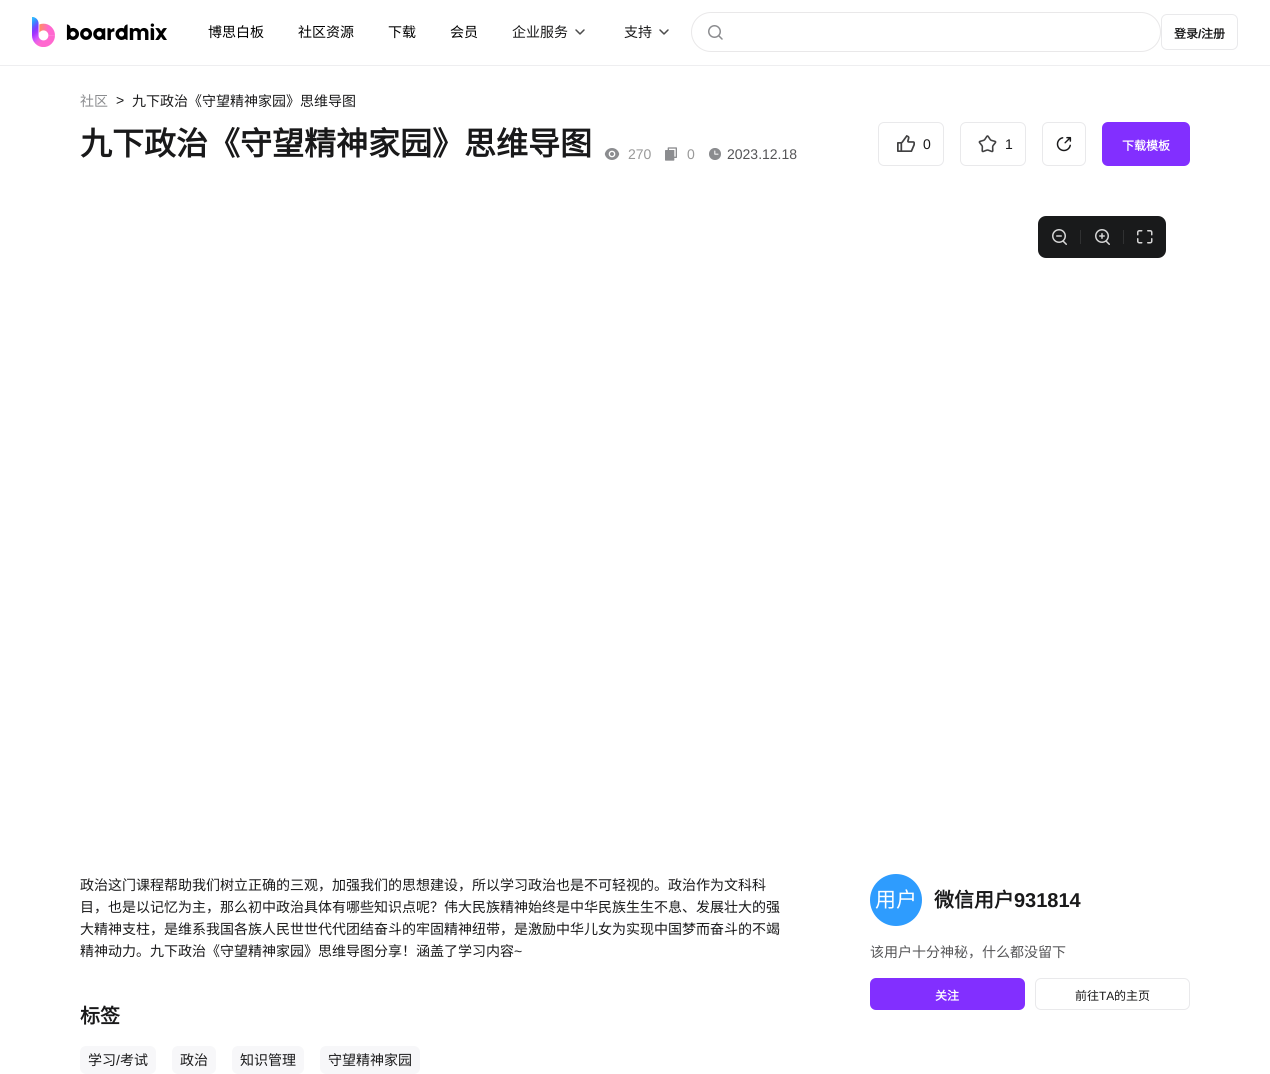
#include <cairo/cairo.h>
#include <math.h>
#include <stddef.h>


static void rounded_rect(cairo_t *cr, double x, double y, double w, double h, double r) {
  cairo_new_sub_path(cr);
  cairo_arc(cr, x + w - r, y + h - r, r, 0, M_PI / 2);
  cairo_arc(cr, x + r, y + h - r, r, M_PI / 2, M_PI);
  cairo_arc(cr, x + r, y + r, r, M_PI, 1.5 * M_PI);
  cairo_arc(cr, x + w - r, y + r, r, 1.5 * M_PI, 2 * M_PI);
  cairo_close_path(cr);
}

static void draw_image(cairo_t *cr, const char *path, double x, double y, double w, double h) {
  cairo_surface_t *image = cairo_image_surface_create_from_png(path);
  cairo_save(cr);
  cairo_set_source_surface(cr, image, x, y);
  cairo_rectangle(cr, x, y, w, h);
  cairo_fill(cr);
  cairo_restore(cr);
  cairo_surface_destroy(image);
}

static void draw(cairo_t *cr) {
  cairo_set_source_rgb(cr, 1, 1, 1);
  cairo_paint(cr);
  cairo_set_source_rgb(cr, 238 / 255.0, 238 / 255.0, 240 / 255.0);
  cairo_rectangle(cr, 0, 65, 1270, 1);
  cairo_fill(cr);
  draw_image(cr, "images/1.png", 32, 17, 135, 30);
  draw_image(cr, "images/2.png", 575, 29, 10, 6);
  draw_image(cr, "images/2.png", 659, 29, 10, 6);
  rounded_rect(cr, 691.5, 12.5, 469, 39, 19.5);
  cairo_set_source_rgb(cr, 233 / 255.0, 232 / 255.0, 233 / 255.0);
  cairo_set_line_width(cr, 1);
  cairo_stroke(cr);
  draw_image(cr, "images/3.png", 708, 25, 15, 15);
  rounded_rect(cr, 1161.5, 14.5, 76, 35, 5.5);
  cairo_set_source_rgb(cr, 233 / 255.0, 233 / 255.0, 235 / 255.0);
  cairo_stroke(cr);
  draw_image(cr, "images/4.png", 604, 148, 16, 12);
  draw_image(cr, "images/5.png", 665, 147, 12, 14);
  draw_image(cr, "images/6.png", 709, 148, 12, 12);
  rounded_rect(cr, 878.5, 122.5, 65, 43, 5.5);
  cairo_stroke(cr);
  draw_image(cr, "images/7.png", 897, 135, 18, 17);
  rounded_rect(cr, 960.5, 122.5, 65, 43, 5.5);
  cairo_stroke(cr);
  draw_image(cr, "images/8.png", 978, 135, 19, 18);
  rounded_rect(cr, 1042.5, 122.5, 43, 43, 5.5);
  cairo_stroke(cr);
  draw_image(cr, "images/9.png", 1056, 136, 16, 16);
  cairo_set_source_rgb(cr, 130 / 255.0, 47 / 255.0, 1);
  rounded_rect(cr, 1102, 122, 88, 44, 6);
  cairo_fill(cr);
  cairo_set_source_rgb(cr, 25 / 255.0, 26 / 255.0, 27 / 255.0);
  rounded_rect(cr, 1038, 216, 128, 42, 8);
  cairo_fill(cr);
  draw_image(cr, "images/10.png", 1052, 229, 15, 16);
  cairo_set_source_rgb(cr, 48 / 255.0, 49 / 255.0, 50 / 255.0);
  cairo_rectangle(cr, 1080, 230, 1, 14);
  cairo_fill(cr);
  draw_image(cr, "images/11.png", 1095, 229, 15, 16);
  cairo_rectangle(cr, 1123, 230, 1, 14);
  cairo_fill(cr);
  draw_image(cr, "images/12.png", 1137, 230, 16, 14);
  cairo_set_source_rgb(cr, 247 / 255.0, 247 / 255.0, 249 / 255.0);
  rounded_rect(cr, 80, 1046, 76, 28, 6);
  cairo_fill(cr);
  rounded_rect(cr, 172, 1046, 44, 28, 6);
  cairo_fill(cr);
  rounded_rect(cr, 232, 1046, 72, 28, 6);
  cairo_fill(cr);
  rounded_rect(cr, 320, 1046, 100, 28, 6);
  cairo_fill(cr);
  cairo_set_source_rgb(cr, 46 / 255.0, 156 / 255.0, 254 / 255.0);
  cairo_arc(cr, 896, 900, 26, 0, 2 * M_PI);
  cairo_fill(cr);
  cairo_set_source_rgb(cr, 130 / 255.0, 47 / 255.0, 1);
  rounded_rect(cr, 870, 978, 155, 32, 6);
  cairo_fill(cr);
  rounded_rect(cr, 1035.5, 978.5, 154, 31, 5.5);
  cairo_set_source_rgb(cr, 233 / 255.0, 233 / 255.0, 235 / 255.0);
  cairo_stroke(cr);
  cairo_select_font_face(cr, "Noto Sans CJK SC", CAIRO_FONT_SLANT_NORMAL, CAIRO_FONT_WEIGHT_NORMAL);
  cairo_set_font_size(cr, 14);
  cairo_set_source_rgb(cr, 0, 0, 0);
  cairo_move_to(cr, 208, 37);
  cairo_show_text(cr, "博思白板");
  cairo_move_to(cr, 298, 37);
  cairo_show_text(cr, "社区资源");
  cairo_move_to(cr, 388, 37);
  cairo_show_text(cr, "下载");
  cairo_move_to(cr, 450, 37);
  cairo_show_text(cr, "会员");
  cairo_set_source_rgb(cr, 25 / 255.0, 25 / 255.0, 26 / 255.0);
  cairo_move_to(cr, 512, 37);
  cairo_show_text(cr, "企业服务");
  cairo_move_to(cr, 624, 37);
  cairo_show_text(cr, "支持");
  cairo_select_font_face(cr, "Noto Sans CJK SC", CAIRO_FONT_SLANT_NORMAL, CAIRO_FONT_WEIGHT_BOLD);
  cairo_set_font_size(cr, 12);
  cairo_move_to(cr, 1174, 38);
  cairo_show_text(cr, "登录");
  cairo_select_font_face(cr, "Liberation Sans", CAIRO_FONT_SLANT_NORMAL, CAIRO_FONT_WEIGHT_BOLD);
  cairo_move_to(cr, 1198, 38);
  cairo_show_text(cr, "/");
  cairo_select_font_face(cr, "Noto Sans CJK SC", CAIRO_FONT_SLANT_NORMAL, CAIRO_FONT_WEIGHT_BOLD);
  cairo_move_to(cr, 1201, 38);
  cairo_show_text(cr, "注册");
  cairo_select_font_face(cr, "Noto Sans CJK SC", CAIRO_FONT_SLANT_NORMAL, CAIRO_FONT_WEIGHT_NORMAL);
  cairo_set_font_size(cr, 14);
  cairo_set_source_rgb(cr, 139 / 255.0, 140 / 255.0, 143 / 255.0);
  cairo_move_to(cr, 80, 106);
  cairo_show_text(cr, "社区");
  cairo_select_font_face(cr, "Liberation Sans", CAIRO_FONT_SLANT_NORMAL, CAIRO_FONT_WEIGHT_NORMAL);
  cairo_set_source_rgb(cr, 25 / 255.0, 25 / 255.0, 26 / 255.0);
  cairo_move_to(cr, 116, 105);
  cairo_show_text(cr, ">");
  cairo_select_font_face(cr, "Noto Sans CJK SC", CAIRO_FONT_SLANT_NORMAL, CAIRO_FONT_WEIGHT_NORMAL);
  cairo_move_to(cr, 132, 106);
  cairo_show_text(cr, "九下政治《守望精神家园》思维导图");
  cairo_select_font_face(cr, "Noto Sans CJK SC", CAIRO_FONT_SLANT_NORMAL, CAIRO_FONT_WEIGHT_BOLD);
  cairo_set_font_size(cr, 32);
  cairo_move_to(cr, 80, 155);
  cairo_show_text(cr, "九下政治《守望精神家园》思维导图");
  cairo_select_font_face(cr, "Liberation Sans", CAIRO_FONT_SLANT_NORMAL, CAIRO_FONT_WEIGHT_NORMAL);
  cairo_set_font_size(cr, 14);
  cairo_set_source_rgb(cr, 153 / 255.0, 153 / 255.0, 153 / 255.0);
  cairo_move_to(cr, 628, 159);
  cairo_show_text(cr, "270");
  cairo_move_to(cr, 687, 159);
  cairo_show_text(cr, "0");
  cairo_set_source_rgb(cr, 85 / 255.0, 85 / 255.0, 87 / 255.0);
  cairo_move_to(cr, 727, 159);
  cairo_show_text(cr, "2023.12.18");
  cairo_set_source_rgb(cr, 25 / 255.0, 25 / 255.0, 26 / 255.0);
  cairo_move_to(cr, 923, 149);
  cairo_show_text(cr, "0");
  cairo_move_to(cr, 1005, 149);
  cairo_show_text(cr, "1");
  cairo_select_font_face(cr, "Noto Sans CJK SC", CAIRO_FONT_SLANT_NORMAL, CAIRO_FONT_WEIGHT_BOLD);
  cairo_set_font_size(cr, 12);
  cairo_set_source_rgb(cr, 1, 1, 1);
  cairo_move_to(cr, 1122, 150);
  cairo_show_text(cr, "下载模板");
  cairo_select_font_face(cr, "Noto Sans CJK SC", CAIRO_FONT_SLANT_NORMAL, CAIRO_FONT_WEIGHT_NORMAL);
  cairo_set_font_size(cr, 14);
  cairo_set_source_rgb(cr, 25 / 255.0, 25 / 255.0, 26 / 255.0);
  cairo_move_to(cr, 80, 890);
  cairo_show_text(cr, "政治这门课程帮助我们树立正确的三观，加强我们的思想建设，所以学习政治也是不可轻视的。政治作为文科科");
  cairo_move_to(cr, 80, 912);
  cairo_show_text(cr, "目，也是以记忆为主，那么初中政治具体有哪些知识点呢？伟大民族精神始终是中华民族生生不息、发展壮大的强");
  cairo_move_to(cr, 80, 934);
  cairo_show_text(cr, "大精神支柱，是维系我国各族人民世世代代团结奋斗的牢固精神纽带，是激励中华儿女为实现中国梦而奋斗的不竭");
  cairo_move_to(cr, 80, 956);
  cairo_show_text(cr, "精神动力。九下政治《守望精神家园》思维导图分享！涵盖了学习内容");
  cairo_select_font_face(cr, "Liberation Sans", CAIRO_FONT_SLANT_NORMAL, CAIRO_FONT_WEIGHT_NORMAL);
  cairo_move_to(cr, 514, 956);
  cairo_show_text(cr, "~");
  cairo_select_font_face(cr, "Noto Sans CJK SC", CAIRO_FONT_SLANT_NORMAL, CAIRO_FONT_WEIGHT_BOLD);
  cairo_set_font_size(cr, 20);
  cairo_move_to(cr, 80, 1023);
  cairo_show_text(cr, "标签");
  cairo_select_font_face(cr, "Noto Sans CJK SC", CAIRO_FONT_SLANT_NORMAL, CAIRO_FONT_WEIGHT_NORMAL);
  cairo_set_font_size(cr, 14);
  cairo_move_to(cr, 88, 1065);
  cairo_show_text(cr, "学习");
  cairo_select_font_face(cr, "Liberation Sans", CAIRO_FONT_SLANT_NORMAL, CAIRO_FONT_WEIGHT_NORMAL);
  cairo_move_to(cr, 116, 1065);
  cairo_show_text(cr, "/");
  cairo_select_font_face(cr, "Noto Sans CJK SC", CAIRO_FONT_SLANT_NORMAL, CAIRO_FONT_WEIGHT_NORMAL);
  cairo_move_to(cr, 120, 1065);
  cairo_show_text(cr, "考试");
  cairo_move_to(cr, 180, 1065);
  cairo_show_text(cr, "政治");
  cairo_move_to(cr, 240, 1065);
  cairo_show_text(cr, "知识管理");
  cairo_move_to(cr, 328, 1065);
  cairo_show_text(cr, "守望精神家园");
  cairo_set_font_size(cr, 21);
  cairo_set_source_rgb(cr, 1, 1, 1);
  cairo_move_to(cr, 875, 907);
  cairo_show_text(cr, "用户");
  cairo_select_font_face(cr, "Noto Sans CJK SC", CAIRO_FONT_SLANT_NORMAL, CAIRO_FONT_WEIGHT_BOLD);
  cairo_set_font_size(cr, 20);
  cairo_set_source_rgb(cr, 25 / 255.0, 25 / 255.0, 26 / 255.0);
  cairo_move_to(cr, 934, 907);
  cairo_show_text(cr, "微信用户");
  cairo_select_font_face(cr, "Liberation Sans", CAIRO_FONT_SLANT_NORMAL, CAIRO_FONT_WEIGHT_BOLD);
  cairo_move_to(cr, 1014, 907);
  cairo_show_text(cr, "931814");
  cairo_select_font_face(cr, "Noto Sans CJK SC", CAIRO_FONT_SLANT_NORMAL, CAIRO_FONT_WEIGHT_NORMAL);
  cairo_set_font_size(cr, 14);
  cairo_set_source_rgb(cr, 85 / 255.0, 85 / 255.0, 87 / 255.0);
  cairo_move_to(cr, 870, 957);
  cairo_show_text(cr, "该用户十分神秘，什么都没留下");
  cairo_select_font_face(cr, "Noto Sans CJK SC", CAIRO_FONT_SLANT_NORMAL, CAIRO_FONT_WEIGHT_BOLD);
  cairo_set_font_size(cr, 12);
  cairo_set_source_rgb(cr, 1, 1, 1);
  cairo_move_to(cr, 935, 1000);
  cairo_show_text(cr, "关注");
  cairo_select_font_face(cr, "Noto Sans CJK SC", CAIRO_FONT_SLANT_NORMAL, CAIRO_FONT_WEIGHT_NORMAL);
  cairo_set_source_rgb(cr, 25 / 255.0, 25 / 255.0, 26 / 255.0);
  cairo_move_to(cr, 1075, 1000);
  cairo_show_text(cr, "前往");
  cairo_select_font_face(cr, "Liberation Sans", CAIRO_FONT_SLANT_NORMAL, CAIRO_FONT_WEIGHT_NORMAL);
  cairo_move_to(cr, 1099, 1000);
  cairo_show_text(cr, "TA");
  cairo_select_font_face(cr, "Noto Sans CJK SC", CAIRO_FONT_SLANT_NORMAL, CAIRO_FONT_WEIGHT_NORMAL);
  cairo_move_to(cr, 1114, 1000);
  cairo_show_text(cr, "的主页");
}

int main(void) {
  cairo_surface_t *surface = cairo_image_surface_create(CAIRO_FORMAT_RGB24, 1270, 1074);
  cairo_t *cr = cairo_create(surface);
  cairo_font_options_t *options = cairo_font_options_create();
  cairo_font_options_set_hint_metrics(options, CAIRO_HINT_METRICS_OFF);
  cairo_font_options_set_hint_style(options, CAIRO_HINT_STYLE_NONE);
  cairo_set_font_options(cr, options);
  cairo_set_miter_limit(cr, 4);
  draw(cr);
  cairo_surface_write_to_png(surface, "out.png");
  cairo_font_options_destroy(options);
  cairo_destroy(cr);
  cairo_surface_destroy(surface);
  return 0;
}
